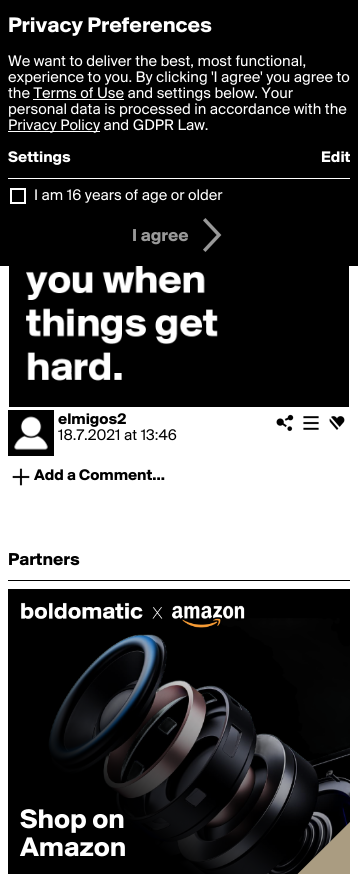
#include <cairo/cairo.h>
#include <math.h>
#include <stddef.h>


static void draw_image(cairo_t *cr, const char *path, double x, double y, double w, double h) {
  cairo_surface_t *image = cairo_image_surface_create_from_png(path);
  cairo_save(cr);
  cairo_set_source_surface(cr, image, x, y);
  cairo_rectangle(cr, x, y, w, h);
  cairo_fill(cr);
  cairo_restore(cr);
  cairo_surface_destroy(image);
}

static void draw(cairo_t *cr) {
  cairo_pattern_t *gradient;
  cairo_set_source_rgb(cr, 1, 1, 1);
  cairo_paint(cr);
  cairo_set_source_rgb(cr, 0, 0, 0);
  cairo_rectangle(cr, 0, 0, 358, 266);
  cairo_fill(cr);
  cairo_set_source_rgb(cr, 1, 1, 1);
  cairo_rectangle(cr, 33, 99, 91, 1);
  cairo_fill(cr);
  cairo_rectangle(cr, 8, 131, 92, 1);
  cairo_fill(cr);
  cairo_rectangle(cr, 8, 178, 342, 1);
  cairo_fill(cr);
  cairo_rectangle(cr, 11, 189, 14, 14);
  cairo_stroke(cr);
  draw_image(cr, "images/1.png", 203, 218, 19, 34);
  draw_image(cr, "images/2.png", 9, 266, 340, 141);
  draw_image(cr, "images/3.png", 8, 410, 46, 46);
  draw_image(cr, "images/4.png", 276, 414, 18, 18);
  draw_image(cr, "images/5.png", 303, 416, 16, 14);
  draw_image(cr, "images/6.png", 329, 416, 16, 14);
  draw_image(cr, "images/7.png", 12, 468, 18, 18);
  cairo_set_source_rgb(cr, 0, 0, 0);
  cairo_rectangle(cr, 8, 580, 342, 1);
  cairo_fill(cr);
  cairo_rectangle(cr, 8, 589, 342, 285);
  cairo_fill(cr);
  draw_image(cr, "images/9.png", 48, 618, 302, 256);
  draw_image(cr, "images/8.png", 21, 602, 224, 26);
  gradient = cairo_pattern_create_linear(327, 571, 31, 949);
  cairo_pattern_add_color_stop_rgba(gradient, 0.29, 0, 0, 0, 0);
  cairo_pattern_add_color_stop_rgba(gradient, 0.67, 0, 0, 0, 1);
  cairo_set_source(cr, gradient);
  cairo_pattern_destroy(gradient);
  cairo_rectangle(cr, 48, 634, 302, 240);
  cairo_fill(cr);
  cairo_save(cr);
  cairo_rectangle(cr, 8, 589, 342, 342);
  cairo_clip(cr);
  cairo_set_source_rgb(cr, 170 / 255.0, 156 / 255.0, 129 / 255.0);
  cairo_new_path(cr);
  cairo_move_to(cr, 226, 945);
  cairo_line_to(cr, 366, 806);
  cairo_line_to(cr, 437, 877);
  cairo_line_to(cr, 297, 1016);
  cairo_close_path(cr);
  cairo_fill(cr);
  cairo_restore(cr);
  cairo_select_font_face(cr, "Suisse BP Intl", CAIRO_FONT_SLANT_NORMAL, CAIRO_FONT_WEIGHT_BOLD);
  cairo_set_font_size(cr, 22);
  cairo_set_source_rgb(cr, 1, 1, 1);
  cairo_move_to(cr, 8, 32);
  cairo_show_text(cr, "Privacy Preferences");
  cairo_select_font_face(cr, "Suisse BP Intl", CAIRO_FONT_SLANT_NORMAL, CAIRO_FONT_WEIGHT_NORMAL);
  cairo_set_font_size(cr, 16);
  cairo_move_to(cr, 8, 66);
  cairo_show_text(cr, "We want to deliver the best, most functional,");
  cairo_move_to(cr, 8, 82);
  cairo_show_text(cr, "experience to you. By clicking 'I agree' you agree to");
  cairo_move_to(cr, 8, 98);
  cairo_show_text(cr, "the Terms of Use and settings below. Your");
  cairo_move_to(cr, 8, 114);
  cairo_show_text(cr, "personal data is processed in accordance with the");
  cairo_move_to(cr, 8, 130);
  cairo_show_text(cr, "Privacy Policy and GDPR Law.");
  cairo_select_font_face(cr, "Suisse BP Intl", CAIRO_FONT_SLANT_NORMAL, CAIRO_FONT_WEIGHT_BOLD);
  cairo_move_to(cr, 8, 162);
  cairo_show_text(cr, "Settings");
  cairo_move_to(cr, 321, 162);
  cairo_show_text(cr, "Edit");
  cairo_select_font_face(cr, "Suisse BP Intl", CAIRO_FONT_SLANT_NORMAL, CAIRO_FONT_WEIGHT_NORMAL);
  cairo_move_to(cr, 34, 200);
  cairo_show_text(cr, "I am 16 years of age or older");
  cairo_select_font_face(cr, "Suisse BP Intl", CAIRO_FONT_SLANT_NORMAL, CAIRO_FONT_WEIGHT_BOLD);
  cairo_set_font_size(cr, 18);
  cairo_set_source_rgb(cr, 153 / 255.0, 153 / 255.0, 153 / 255.0);
  cairo_move_to(cr, 132, 241);
  cairo_show_text(cr, "I agree");
  cairo_set_font_size(cr, 16);
  cairo_set_source_rgb(cr, 0, 0, 0);
  cairo_move_to(cr, 58, 424);
  cairo_show_text(cr, "elmigos2");
  cairo_select_font_face(cr, "Suisse BP Intl", CAIRO_FONT_SLANT_NORMAL, CAIRO_FONT_WEIGHT_NORMAL);
  cairo_move_to(cr, 58, 440);
  cairo_show_text(cr, "18.7.2021 at 13:46");
  cairo_select_font_face(cr, "Suisse BP Intl", CAIRO_FONT_SLANT_NORMAL, CAIRO_FONT_WEIGHT_BOLD);
  cairo_move_to(cr, 34, 480);
  cairo_show_text(cr, "Add a Comment...");
  cairo_set_font_size(cr, 18);
  cairo_move_to(cr, 8, 565);
  cairo_show_text(cr, "Partners");
  cairo_set_font_size(cr, 28);
  cairo_set_source_rgb(cr, 1, 1, 1);
  cairo_move_to(cr, 20, 828);
  cairo_show_text(cr, "Shop on");
  cairo_move_to(cr, 20, 856);
  cairo_show_text(cr, "Amazon");
}

int main(void) {
  cairo_surface_t *surface = cairo_image_surface_create(CAIRO_FORMAT_RGB24, 358, 874);
  cairo_t *cr = cairo_create(surface);
  cairo_font_options_t *options = cairo_font_options_create();
  cairo_font_options_set_hint_metrics(options, CAIRO_HINT_METRICS_OFF);
  cairo_font_options_set_hint_style(options, CAIRO_HINT_STYLE_NONE);
  cairo_set_font_options(cr, options);
  cairo_set_miter_limit(cr, 4);
  draw(cr);
  cairo_surface_write_to_png(surface, "out.png");
  cairo_font_options_destroy(options);
  cairo_destroy(cr);
  cairo_surface_destroy(surface);
  return 0;
}
